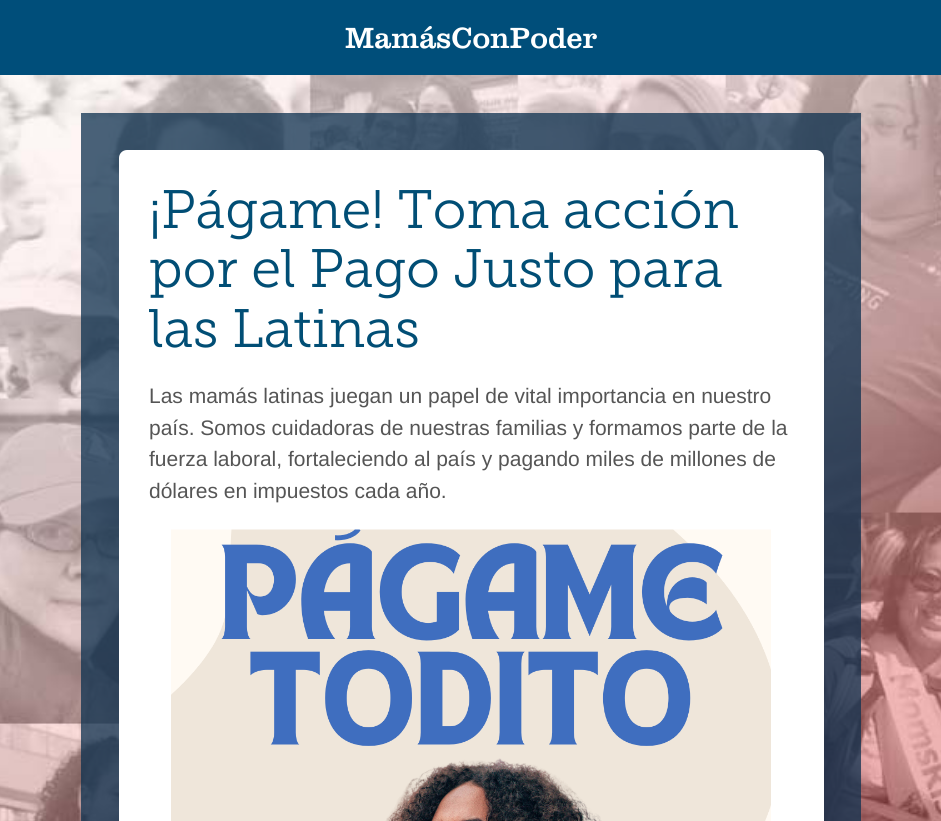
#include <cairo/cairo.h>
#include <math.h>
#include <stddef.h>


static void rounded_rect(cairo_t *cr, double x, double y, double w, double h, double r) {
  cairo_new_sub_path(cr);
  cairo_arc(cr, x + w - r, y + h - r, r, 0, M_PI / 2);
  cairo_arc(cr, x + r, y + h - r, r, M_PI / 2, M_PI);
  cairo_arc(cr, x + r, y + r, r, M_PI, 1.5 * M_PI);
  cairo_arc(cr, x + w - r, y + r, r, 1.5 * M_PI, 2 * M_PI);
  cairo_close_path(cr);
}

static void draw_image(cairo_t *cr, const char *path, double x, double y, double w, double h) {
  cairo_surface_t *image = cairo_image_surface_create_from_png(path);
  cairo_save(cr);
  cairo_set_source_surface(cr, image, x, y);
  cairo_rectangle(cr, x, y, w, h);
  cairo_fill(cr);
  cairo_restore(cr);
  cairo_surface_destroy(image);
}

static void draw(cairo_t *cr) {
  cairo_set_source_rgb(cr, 0, 78 / 255.0, 122 / 255.0);
  cairo_paint(cr);
  draw_image(cr, "images/1.png", 0, 75, 941, 746);
  cairo_set_source_rgba(cr, 13 / 255.0, 49 / 255.0, 79 / 255.0, 0.75);
  cairo_rectangle(cr, 81, 113, 780, 708);
  cairo_fill(cr);
  cairo_set_source_rgb(cr, 1, 1, 1);
  rounded_rect(cr, 119, 150, 705, 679, 8);
  cairo_fill(cr);
  draw_image(cr, "images/2.png", 171, 529, 600, 292);
  cairo_select_font_face(cr, "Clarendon", CAIRO_FONT_SLANT_NORMAL, CAIRO_FONT_WEIGHT_NORMAL);
  cairo_set_font_size(cr, 30);
  cairo_move_to(cr, 345, 48);
  cairo_show_text(cr, "MamásConPoder");
  cairo_select_font_face(cr, "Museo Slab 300 Light", CAIRO_FONT_SLANT_NORMAL, CAIRO_FONT_WEIGHT_NORMAL);
  cairo_set_font_size(cr, 54);
  cairo_set_source_rgb(cr, 1 / 255.0, 78 / 255.0, 117 / 255.0);
  cairo_move_to(cr, 149, 228);
  cairo_show_text(cr, "¡Págame! Toma acción");
  cairo_move_to(cr, 149, 287);
  cairo_show_text(cr, "por el Pago Justo para");
  cairo_move_to(cr, 149, 347);
  cairo_show_text(cr, "las Latinas");
  cairo_select_font_face(cr, "Liberation Sans", CAIRO_FONT_SLANT_NORMAL, CAIRO_FONT_WEIGHT_NORMAL);
  cairo_set_font_size(cr, 21);
  cairo_set_source_rgb(cr, 85 / 255.0, 85 / 255.0, 85 / 255.0);
  cairo_move_to(cr, 149, 403);
  cairo_show_text(cr, "Las mamás latinas juegan un papel de vital importancia en nuestro");
  cairo_move_to(cr, 149, 435);
  cairo_show_text(cr, "país. Somos cuidadoras de nuestras familias y formamos parte de la");
  cairo_move_to(cr, 149, 466);
  cairo_show_text(cr, "fuerza laboral, fortaleciendo al país y pagando miles de millones de");
  cairo_move_to(cr, 149, 498);
  cairo_show_text(cr, "dólares en impuestos cada año.");
}

int main(void) {
  cairo_surface_t *surface = cairo_image_surface_create(CAIRO_FORMAT_RGB24, 941, 821);
  cairo_t *cr = cairo_create(surface);
  cairo_font_options_t *options = cairo_font_options_create();
  cairo_font_options_set_hint_metrics(options, CAIRO_HINT_METRICS_OFF);
  cairo_font_options_set_hint_style(options, CAIRO_HINT_STYLE_NONE);
  cairo_set_font_options(cr, options);
  cairo_set_miter_limit(cr, 4);
  draw(cr);
  cairo_surface_write_to_png(surface, "out.png");
  cairo_font_options_destroy(options);
  cairo_destroy(cr);
  cairo_surface_destroy(surface);
  return 0;
}
